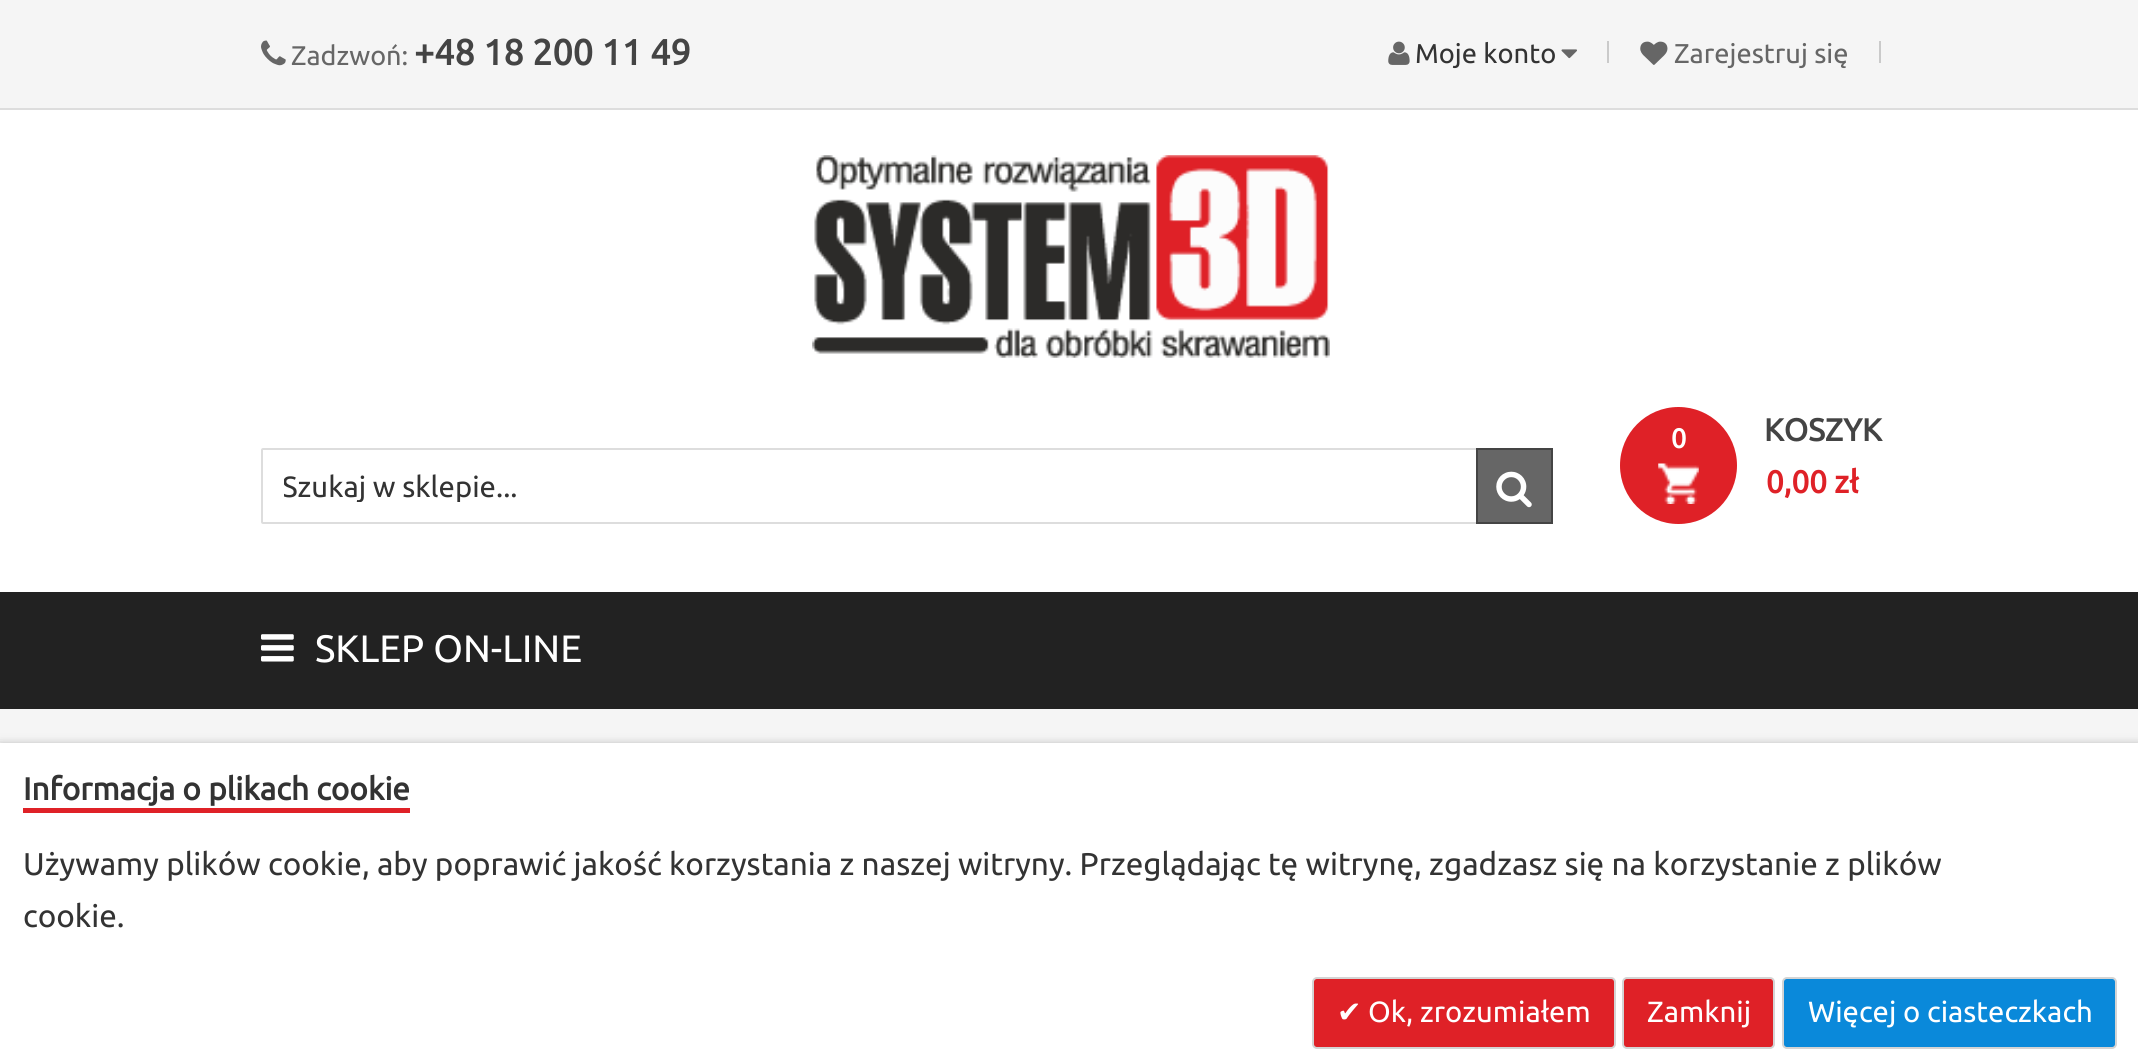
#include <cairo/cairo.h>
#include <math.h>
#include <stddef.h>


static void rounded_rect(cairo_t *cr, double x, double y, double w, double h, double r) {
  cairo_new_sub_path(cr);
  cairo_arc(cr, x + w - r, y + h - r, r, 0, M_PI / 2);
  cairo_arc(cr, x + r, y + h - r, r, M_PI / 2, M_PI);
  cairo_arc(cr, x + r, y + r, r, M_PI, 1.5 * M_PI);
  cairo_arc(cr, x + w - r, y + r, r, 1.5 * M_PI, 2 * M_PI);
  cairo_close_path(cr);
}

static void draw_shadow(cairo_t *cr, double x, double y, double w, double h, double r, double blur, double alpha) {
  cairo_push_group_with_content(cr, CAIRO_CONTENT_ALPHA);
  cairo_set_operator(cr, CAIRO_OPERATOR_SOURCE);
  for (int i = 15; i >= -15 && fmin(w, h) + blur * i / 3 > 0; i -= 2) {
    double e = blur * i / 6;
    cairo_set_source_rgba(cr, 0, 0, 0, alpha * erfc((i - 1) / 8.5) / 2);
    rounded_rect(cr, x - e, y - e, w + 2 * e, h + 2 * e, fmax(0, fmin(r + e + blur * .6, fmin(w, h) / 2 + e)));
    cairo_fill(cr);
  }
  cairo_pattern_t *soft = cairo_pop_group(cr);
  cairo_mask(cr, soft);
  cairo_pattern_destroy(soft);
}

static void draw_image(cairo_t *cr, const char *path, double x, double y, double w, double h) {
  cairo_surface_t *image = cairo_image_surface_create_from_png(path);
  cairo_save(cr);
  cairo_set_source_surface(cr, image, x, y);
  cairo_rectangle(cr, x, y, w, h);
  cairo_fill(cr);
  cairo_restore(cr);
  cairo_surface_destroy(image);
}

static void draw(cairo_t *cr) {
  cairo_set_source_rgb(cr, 245 / 255.0, 245 / 255.0, 245 / 255.0);
  cairo_paint(cr);
  cairo_set_source_rgb(cr, 221 / 255.0, 221 / 255.0, 221 / 255.0);
  cairo_rectangle(cr, 0, 108, 2138, 2);
  cairo_fill(cr);
  draw_image(cr, "images/1.png", 261, 40, 25, 26);
  draw_image(cr, "images/2.png", 1388, 41, 22, 24);
  draw_image(cr, "images/3.png", 1561, 49, 16, 10);
  cairo_set_source_rgb(cr, 202 / 255.0, 202 / 255.0, 202 / 255.0);
  cairo_rectangle(cr, 1607, 41, 2, 22);
  cairo_fill(cr);
  draw_image(cr, "images/4.png", 1640, 41, 28, 24);
  cairo_rectangle(cr, 1879, 41, 2, 22);
  cairo_fill(cr);
  cairo_set_source_rgb(cr, 1, 1, 1);
  cairo_rectangle(cr, 0, 110, 2138, 482);
  cairo_fill(cr);
  draw_image(cr, "images/5.png", 812, 155, 518, 203);
  rounded_rect(cr, 262, 449, 1290, 74, 1);
  cairo_set_source_rgb(cr, 221 / 255.0, 221 / 255.0, 221 / 255.0);
  cairo_stroke(cr);
  cairo_set_source_rgb(cr, 102 / 255.0, 102 / 255.0, 102 / 255.0);
  cairo_rectangle(cr, 1477, 449, 75, 74);
  cairo_fill_preserve(cr);
  cairo_set_source_rgb(cr, 68 / 255.0, 68 / 255.0, 68 / 255.0);
  cairo_stroke(cr);
  draw_image(cr, "images/6.png", 1496, 471, 36, 37);
  cairo_set_source_rgb(cr, 223 / 255.0, 33 / 255.0, 39 / 255.0);
  cairo_arc(cr, 1678.5, 465.5, 58.5, 0, 2 * M_PI);
  cairo_fill(cr);
  draw_image(cr, "images/7.png", 1658, 463, 41, 41);
  cairo_set_source_rgb(cr, 34 / 255.0, 34 / 255.0, 34 / 255.0);
  cairo_rectangle(cr, 0, 592, 2138, 117);
  cairo_fill(cr);
  draw_image(cr, "images/8.png", 261, 634, 33, 28);
  cairo_set_source_rgb(cr, 0, 0, 0);
  draw_shadow(cr, 0, 747, 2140, 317, 0, 5.5, 0.47);
  cairo_set_source_rgb(cr, 1, 1, 1);
  cairo_rectangle(cr, 0, 743, 2138, 315);
  cairo_fill(cr);
  cairo_set_source_rgb(cr, 223 / 255.0, 33 / 255.0, 39 / 255.0);
  cairo_rectangle(cr, 23, 808, 387, 5);
  cairo_fill(cr);
  rounded_rect(cr, 1313, 978, 302, 70, 4);
  cairo_fill_preserve(cr);
  cairo_set_source_rgb(cr, 212 / 255.0, 212 / 255.0, 212 / 255.0);
  cairo_stroke(cr);
  cairo_set_source_rgb(cr, 223 / 255.0, 33 / 255.0, 39 / 255.0);
  rounded_rect(cr, 1623, 978, 151, 70, 4);
  cairo_fill_preserve(cr);
  cairo_set_source_rgb(cr, 212 / 255.0, 212 / 255.0, 212 / 255.0);
  cairo_stroke(cr);
  cairo_set_source_rgb(cr, 10 / 255.0, 137 / 255.0, 218 / 255.0);
  rounded_rect(cr, 1783, 978, 333, 70, 4);
  cairo_fill_preserve(cr);
  cairo_set_source_rgb(cr, 212 / 255.0, 212 / 255.0, 212 / 255.0);
  cairo_stroke(cr);
  cairo_select_font_face(cr, "Ubuntu", CAIRO_FONT_SLANT_NORMAL, CAIRO_FONT_WEIGHT_NORMAL);
  cairo_set_font_size(cr, 27);
  cairo_set_source_rgb(cr, 102 / 255.0, 102 / 255.0, 102 / 255.0);
  cairo_move_to(cr, 291, 65);
  cairo_show_text(cr, "Zadzwoń:");
  cairo_select_font_face(cr, "Ubuntu", CAIRO_FONT_SLANT_NORMAL, CAIRO_FONT_WEIGHT_BOLD);
  cairo_set_font_size(cr, 36);
  cairo_set_source_rgb(cr, 68 / 255.0, 68 / 255.0, 68 / 255.0);
  cairo_move_to(cr, 414, 65);
  cairo_show_text(cr, "+48 18 200 11 49");
  cairo_select_font_face(cr, "Ubuntu", CAIRO_FONT_SLANT_NORMAL, CAIRO_FONT_WEIGHT_NORMAL);
  cairo_set_font_size(cr, 27.25);
  cairo_set_source_rgb(cr, 51 / 255.0, 51 / 255.0, 51 / 255.0);
  cairo_move_to(cr, 1415, 63);
  cairo_show_text(cr, "Moje konto");
  cairo_set_source_rgb(cr, 102 / 255.0, 102 / 255.0, 102 / 255.0);
  cairo_move_to(cr, 1674, 63);
  cairo_show_text(cr, "Zarejestruj się");
  cairo_save(cr);
  cairo_rectangle(cr, 284, 470, 1176, 32);
  cairo_clip(cr);
  cairo_set_font_size(cr, 29.25);
  cairo_set_source_rgb(cr, 51 / 255.0, 51 / 255.0, 51 / 255.0);
  cairo_move_to(cr, 282, 497);
  cairo_show_text(cr, "Szukaj w sklepie...");
  cairo_restore(cr);
  cairo_select_font_face(cr, "Ubuntu", CAIRO_FONT_SLANT_NORMAL, CAIRO_FONT_WEIGHT_BOLD);
  cairo_set_font_size(cr, 31.5);
  cairo_set_source_rgb(cr, 68 / 255.0, 68 / 255.0, 68 / 255.0);
  cairo_move_to(cr, 1764, 441);
  cairo_show_text(cr, "KOSZYK");
  cairo_set_font_size(cr, 27.25);
  cairo_set_source_rgb(cr, 1, 1, 1);
  cairo_move_to(cr, 1671, 448);
  cairo_show_text(cr, "0");
  cairo_set_font_size(cr, 31.5);
  cairo_set_source_rgb(cr, 223 / 255.0, 33 / 255.0, 39 / 255.0);
  cairo_move_to(cr, 1766, 493);
  cairo_show_text(cr, "0,00 zł");
  cairo_select_font_face(cr, "Ubuntu", CAIRO_FONT_SLANT_NORMAL, CAIRO_FONT_WEIGHT_NORMAL);
  cairo_set_font_size(cr, 38.25);
  cairo_set_source_rgb(cr, 1, 1, 1);
  cairo_move_to(cr, 315, 662);
  cairo_show_text(cr, "SKLEP ON-LINE");
  cairo_select_font_face(cr, "Ubuntu", CAIRO_FONT_SLANT_NORMAL, CAIRO_FONT_WEIGHT_BOLD);
  cairo_set_font_size(cr, 31.5);
  cairo_set_source_rgb(cr, 51 / 255.0, 51 / 255.0, 51 / 255.0);
  cairo_move_to(cr, 23, 800);
  cairo_show_text(cr, "Informacja o plikach cookie");
  cairo_select_font_face(cr, "Ubuntu", CAIRO_FONT_SLANT_NORMAL, CAIRO_FONT_WEIGHT_NORMAL);
  cairo_move_to(cr, 23, 875);
  cairo_show_text(cr, "Używamy plików cookie, aby poprawić jakość korzystania z naszej witryny. Przeglądając tę witrynę, zgadzasz się na korzystanie z plików");
  cairo_move_to(cr, 23, 927);
  cairo_show_text(cr, "cookie.");
  cairo_select_font_face(cr, "DejaVu Sans", CAIRO_FONT_SLANT_NORMAL, CAIRO_FONT_WEIGHT_NORMAL);
  cairo_set_font_size(cr, 29.25);
  cairo_set_source_rgb(cr, 1, 1, 1);
  cairo_move_to(cr, 1337, 1022);
  cairo_show_text(cr, "✔");
  cairo_select_font_face(cr, "Ubuntu", CAIRO_FONT_SLANT_NORMAL, CAIRO_FONT_WEIGHT_NORMAL);
  cairo_move_to(cr, 1368, 1022);
  cairo_show_text(cr, "Ok, zrozumiałem");
  cairo_move_to(cr, 1647, 1022);
  cairo_show_text(cr, "Zamknij");
  cairo_move_to(cr, 1808, 1022);
  cairo_show_text(cr, "Więcej o ciasteczkach");
}

int main(void) {
  cairo_surface_t *surface = cairo_image_surface_create(CAIRO_FORMAT_RGB24, 2138, 1058);
  cairo_t *cr = cairo_create(surface);
  cairo_font_options_t *options = cairo_font_options_create();
  cairo_font_options_set_hint_metrics(options, CAIRO_HINT_METRICS_OFF);
  cairo_font_options_set_hint_style(options, CAIRO_HINT_STYLE_NONE);
  cairo_set_font_options(cr, options);
  cairo_set_miter_limit(cr, 4);
  draw(cr);
  cairo_surface_write_to_png(surface, "out.png");
  cairo_font_options_destroy(options);
  cairo_destroy(cr);
  cairo_surface_destroy(surface);
  return 0;
}
